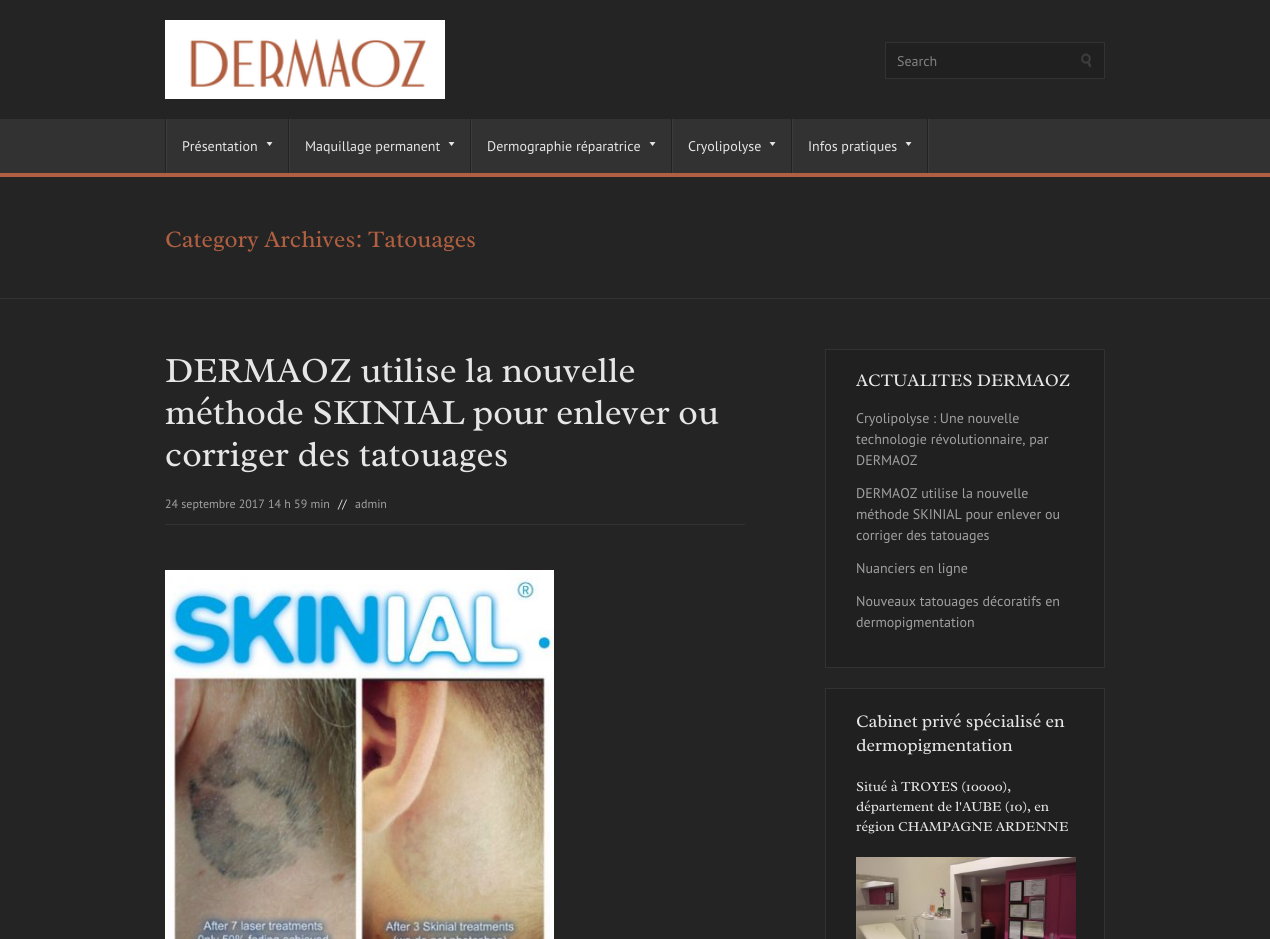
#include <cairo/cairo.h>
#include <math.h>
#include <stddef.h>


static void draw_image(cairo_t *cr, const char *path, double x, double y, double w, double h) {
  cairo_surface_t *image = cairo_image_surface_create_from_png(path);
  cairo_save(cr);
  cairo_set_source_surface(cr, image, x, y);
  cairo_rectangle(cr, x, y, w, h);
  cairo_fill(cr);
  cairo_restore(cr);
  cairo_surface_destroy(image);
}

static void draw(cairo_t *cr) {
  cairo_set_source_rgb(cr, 36 / 255.0, 36 / 255.0, 36 / 255.0);
  cairo_paint(cr);
  draw_image(cr, "images/1.png", 165, 20, 280, 79);
  cairo_set_source_rgb(cr, 32 / 255.0, 32 / 255.0, 32 / 255.0);
  cairo_rectangle(cr, 885.5, 42.5, 219, 36);
  cairo_fill_preserve(cr);
  cairo_set_source_rgb(cr, 50 / 255.0, 50 / 255.0, 50 / 255.0);
  cairo_set_line_width(cr, 1);
  cairo_stroke(cr);
  draw_image(cr, "images/2.png", 1081, 53, 10, 15);
  cairo_rectangle(cr, 0, 119, 1270, 54);
  cairo_fill(cr);
  cairo_set_source_rgb(cr, 176 / 255.0, 95 / 255.0, 64 / 255.0);
  cairo_rectangle(cr, 0, 173, 1270, 4);
  cairo_fill(cr);
  cairo_set_source_rgb(cr, 35 / 255.0, 35 / 255.0, 35 / 255.0);
  cairo_rectangle(cr, 165, 119, 1, 54);
  cairo_fill(cr);
  cairo_rectangle(cr, 288, 119, 1, 54);
  cairo_fill(cr);
  cairo_set_source_rgb(cr, 60 / 255.0, 60 / 255.0, 60 / 255.0);
  cairo_rectangle(cr, 166, 119, 1, 54);
  cairo_fill(cr);
  draw_image(cr, "images/3.png", 266, 142, 7, 4);
  cairo_set_source_rgb(cr, 35 / 255.0, 35 / 255.0, 35 / 255.0);
  cairo_rectangle(cr, 470, 119, 1, 54);
  cairo_fill(cr);
  cairo_set_source_rgb(cr, 60 / 255.0, 60 / 255.0, 60 / 255.0);
  cairo_rectangle(cr, 289, 119, 1, 54);
  cairo_fill(cr);
  draw_image(cr, "images/3.png", 448, 142, 7, 4);
  cairo_set_source_rgb(cr, 35 / 255.0, 35 / 255.0, 35 / 255.0);
  cairo_rectangle(cr, 671, 119, 1, 54);
  cairo_fill(cr);
  cairo_set_source_rgb(cr, 60 / 255.0, 60 / 255.0, 60 / 255.0);
  cairo_rectangle(cr, 471, 119, 1, 54);
  cairo_fill(cr);
  draw_image(cr, "images/3.png", 649, 142, 7, 4);
  cairo_set_source_rgb(cr, 35 / 255.0, 35 / 255.0, 35 / 255.0);
  cairo_rectangle(cr, 791, 119, 1, 54);
  cairo_fill(cr);
  cairo_set_source_rgb(cr, 60 / 255.0, 60 / 255.0, 60 / 255.0);
  cairo_rectangle(cr, 672, 119, 1, 54);
  cairo_fill(cr);
  draw_image(cr, "images/3.png", 769, 142, 7, 4);
  cairo_set_source_rgb(cr, 35 / 255.0, 35 / 255.0, 35 / 255.0);
  cairo_rectangle(cr, 927, 119, 1, 54);
  cairo_fill(cr);
  cairo_set_source_rgb(cr, 60 / 255.0, 60 / 255.0, 60 / 255.0);
  cairo_rectangle(cr, 792, 119, 1, 54);
  cairo_fill(cr);
  draw_image(cr, "images/3.png", 905, 142, 7, 4);
  cairo_rectangle(cr, 928, 119, 1, 54);
  cairo_fill(cr);
  cairo_set_source_rgb(cr, 50 / 255.0, 50 / 255.0, 50 / 255.0);
  cairo_rectangle(cr, 0, 298, 1270, 1);
  cairo_fill(cr);
  cairo_rectangle(cr, 165, 524, 580, 1);
  cairo_fill(cr);
  draw_image(cr, "images/4.png", 165, 570, 389, 369);
  cairo_set_source_rgb(cr, 32 / 255.0, 32 / 255.0, 32 / 255.0);
  cairo_rectangle(cr, 825.5, 349.5, 279, 318);
  cairo_fill_preserve(cr);
  cairo_set_source_rgb(cr, 50 / 255.0, 50 / 255.0, 50 / 255.0);
  cairo_stroke(cr);
  cairo_set_source_rgb(cr, 32 / 255.0, 32 / 255.0, 32 / 255.0);
  cairo_rectangle(cr, 825.5, 688.5, 279, 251);
  cairo_fill_preserve(cr);
  cairo_set_source_rgb(cr, 50 / 255.0, 50 / 255.0, 50 / 255.0);
  cairo_stroke(cr);
  draw_image(cr, "images/5.png", 856, 857, 220, 82);
  cairo_select_font_face(cr, "PT Sans", CAIRO_FONT_SLANT_NORMAL, CAIRO_FONT_WEIGHT_NORMAL);
  cairo_set_font_size(cr, 14);
  cairo_set_source_rgb(cr, 130 / 255.0, 130 / 255.0, 130 / 255.0);
  cairo_move_to(cr, 897, 66);
  cairo_show_text(cr, "Search");
  cairo_set_source_rgb(cr, 230 / 255.0, 230 / 255.0, 230 / 255.0);
  cairo_move_to(cr, 182, 151);
  cairo_show_text(cr, "Présentation");
  cairo_move_to(cr, 305, 151);
  cairo_show_text(cr, "Maquillage permanent");
  cairo_move_to(cr, 487, 151);
  cairo_show_text(cr, "Dermographie réparatrice");
  cairo_move_to(cr, 688, 151);
  cairo_show_text(cr, "Cryolipolyse");
  cairo_move_to(cr, 808, 151);
  cairo_show_text(cr, "Infos pratiques");
  cairo_select_font_face(cr, "Radley", CAIRO_FONT_SLANT_NORMAL, CAIRO_FONT_WEIGHT_NORMAL);
  cairo_set_font_size(cr, 24);
  cairo_set_source_rgb(cr, 176 / 255.0, 95 / 255.0, 64 / 255.0);
  cairo_move_to(cr, 165, 247);
  cairo_show_text(cr, "Category Archives: Tatouages");
  cairo_set_font_size(cr, 36);
  cairo_set_source_rgb(cr, 230 / 255.0, 230 / 255.0, 230 / 255.0);
  cairo_move_to(cr, 165, 382);
  cairo_show_text(cr, "DERMAOZ utilise la nouvelle");
  cairo_move_to(cr, 165, 424);
  cairo_show_text(cr, "méthode SKINIAL pour enlever ou");
  cairo_move_to(cr, 165, 466);
  cairo_show_text(cr, "corriger des tatouages");
  cairo_select_font_face(cr, "PT Sans", CAIRO_FONT_SLANT_NORMAL, CAIRO_FONT_WEIGHT_NORMAL);
  cairo_set_font_size(cr, 12);
  cairo_set_source_rgb(cr, 160 / 255.0, 160 / 255.0, 160 / 255.0);
  cairo_move_to(cr, 165, 508);
  cairo_show_text(cr, "24 septembre 2017 14 h 59 min");
  cairo_set_source_rgb(cr, 230 / 255.0, 230 / 255.0, 230 / 255.0);
  cairo_move_to(cr, 338, 508);
  cairo_show_text(cr, "//");
  cairo_set_source_rgb(cr, 160 / 255.0, 160 / 255.0, 160 / 255.0);
  cairo_move_to(cr, 355, 508);
  cairo_show_text(cr, "admin");
  cairo_select_font_face(cr, "Radley", CAIRO_FONT_SLANT_NORMAL, CAIRO_FONT_WEIGHT_NORMAL);
  cairo_set_font_size(cr, 18);
  cairo_set_source_rgb(cr, 230 / 255.0, 230 / 255.0, 230 / 255.0);
  cairo_move_to(cr, 856, 386);
  cairo_show_text(cr, "ACTUALITES DERMAOZ");
  cairo_select_font_face(cr, "PT Sans", CAIRO_FONT_SLANT_NORMAL, CAIRO_FONT_WEIGHT_NORMAL);
  cairo_set_font_size(cr, 14);
  cairo_set_source_rgb(cr, 160 / 255.0, 160 / 255.0, 160 / 255.0);
  cairo_move_to(cr, 856, 423);
  cairo_show_text(cr, "Cryolipolyse : Une nouvelle");
  cairo_move_to(cr, 856, 444);
  cairo_show_text(cr, "technologie révolutionnaire, par");
  cairo_move_to(cr, 856, 465);
  cairo_show_text(cr, "DERMAOZ");
  cairo_move_to(cr, 856, 498);
  cairo_show_text(cr, "DERMAOZ utilise la nouvelle");
  cairo_move_to(cr, 856, 519);
  cairo_show_text(cr, "méthode SKINIAL pour enlever ou");
  cairo_move_to(cr, 856, 540);
  cairo_show_text(cr, "corriger des tatouages");
  cairo_move_to(cr, 856, 573);
  cairo_show_text(cr, "Nuanciers en ligne");
  cairo_move_to(cr, 856, 606);
  cairo_show_text(cr, "Nouveaux tatouages décoratifs en");
  cairo_move_to(cr, 856, 627);
  cairo_show_text(cr, "dermopigmentation");
  cairo_select_font_face(cr, "Radley", CAIRO_FONT_SLANT_NORMAL, CAIRO_FONT_WEIGHT_NORMAL);
  cairo_set_font_size(cr, 18);
  cairo_set_source_rgb(cr, 230 / 255.0, 230 / 255.0, 230 / 255.0);
  cairo_move_to(cr, 856, 727);
  cairo_show_text(cr, "Cabinet privé spécialisé en");
  cairo_move_to(cr, 856, 751);
  cairo_show_text(cr, "dermopigmentation");
  cairo_set_font_size(cr, 14);
  cairo_move_to(cr, 856, 791);
  cairo_show_text(cr, "Situé à TROYES (10000),");
  cairo_move_to(cr, 856, 811);
  cairo_show_text(cr, "département de l'AUBE (10), en");
  cairo_move_to(cr, 856, 831);
  cairo_show_text(cr, "région CHAMPAGNE ARDENNE");
}

int main(void) {
  cairo_surface_t *surface = cairo_image_surface_create(CAIRO_FORMAT_RGB24, 1270, 939);
  cairo_t *cr = cairo_create(surface);
  cairo_font_options_t *options = cairo_font_options_create();
  cairo_font_options_set_hint_metrics(options, CAIRO_HINT_METRICS_OFF);
  cairo_font_options_set_hint_style(options, CAIRO_HINT_STYLE_NONE);
  cairo_set_font_options(cr, options);
  cairo_set_miter_limit(cr, 4);
  draw(cr);
  cairo_surface_write_to_png(surface, "out.png");
  cairo_font_options_destroy(options);
  cairo_destroy(cr);
  cairo_surface_destroy(surface);
  return 0;
}
